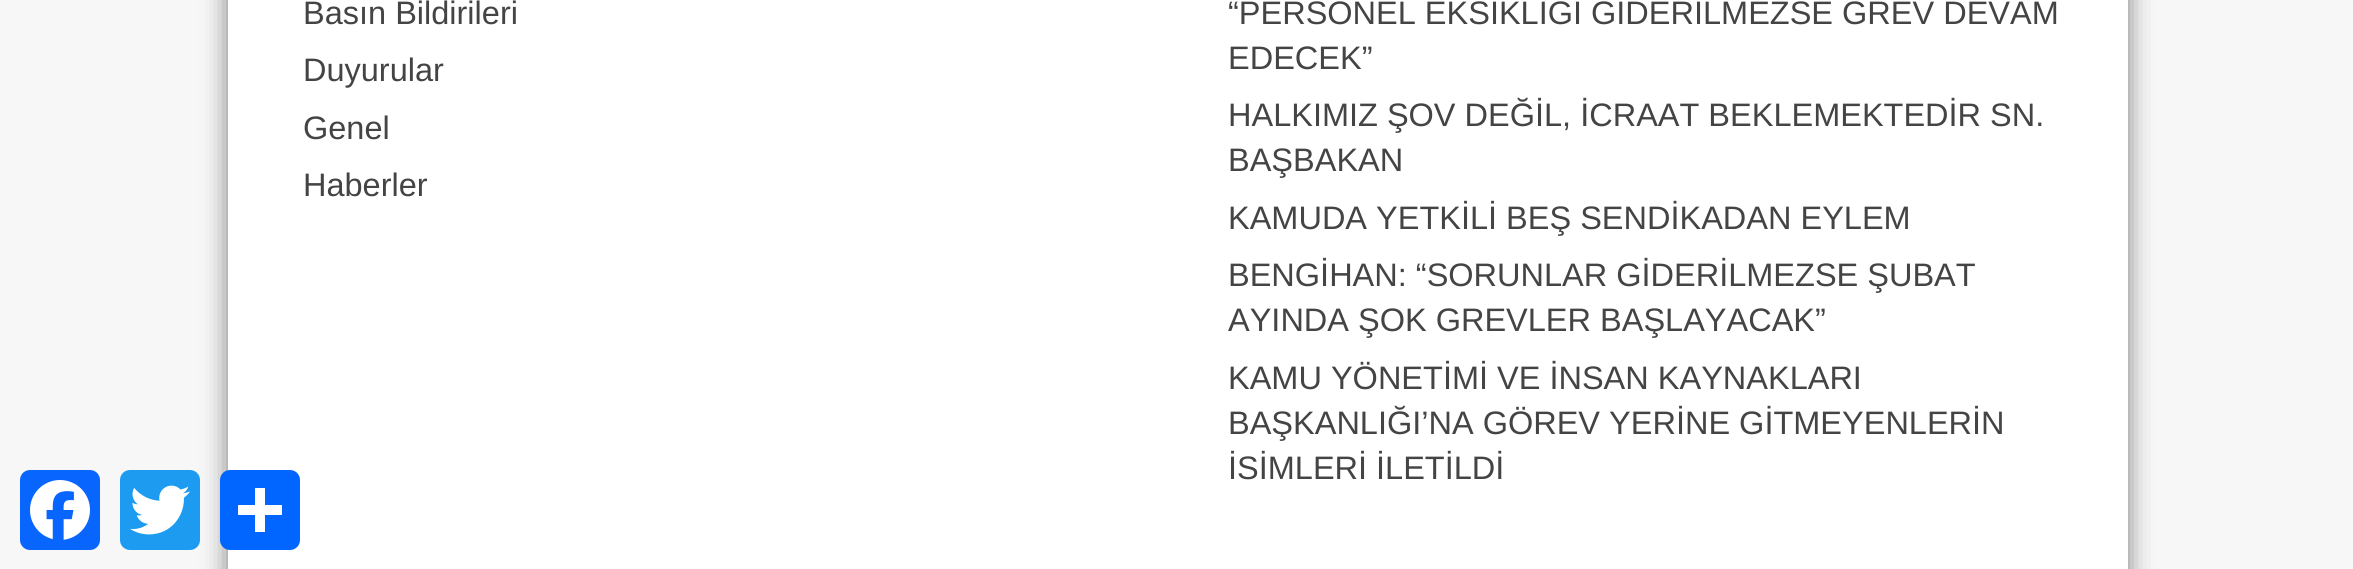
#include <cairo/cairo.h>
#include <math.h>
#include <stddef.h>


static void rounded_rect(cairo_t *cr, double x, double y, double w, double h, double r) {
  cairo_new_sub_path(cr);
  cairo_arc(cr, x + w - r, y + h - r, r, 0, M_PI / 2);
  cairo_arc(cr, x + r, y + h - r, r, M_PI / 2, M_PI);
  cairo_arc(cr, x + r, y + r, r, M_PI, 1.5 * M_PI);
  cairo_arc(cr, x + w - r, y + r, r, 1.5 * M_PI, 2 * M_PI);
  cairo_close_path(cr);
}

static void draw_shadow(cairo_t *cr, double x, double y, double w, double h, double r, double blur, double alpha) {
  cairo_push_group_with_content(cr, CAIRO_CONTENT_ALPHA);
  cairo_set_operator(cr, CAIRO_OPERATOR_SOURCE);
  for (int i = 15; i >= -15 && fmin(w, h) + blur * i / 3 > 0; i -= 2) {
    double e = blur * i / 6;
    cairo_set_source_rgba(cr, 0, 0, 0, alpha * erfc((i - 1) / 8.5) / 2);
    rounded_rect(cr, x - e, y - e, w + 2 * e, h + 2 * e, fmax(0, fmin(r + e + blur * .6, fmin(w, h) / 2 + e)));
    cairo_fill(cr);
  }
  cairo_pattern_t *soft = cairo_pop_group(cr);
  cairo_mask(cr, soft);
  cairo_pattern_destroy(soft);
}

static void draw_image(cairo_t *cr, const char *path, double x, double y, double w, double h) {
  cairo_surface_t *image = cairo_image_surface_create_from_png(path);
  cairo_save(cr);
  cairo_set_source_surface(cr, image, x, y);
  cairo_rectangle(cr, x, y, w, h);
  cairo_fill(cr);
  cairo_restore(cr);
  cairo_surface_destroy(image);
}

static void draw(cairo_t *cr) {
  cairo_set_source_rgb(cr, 247 / 255.0, 247 / 255.0, 247 / 255.0);
  cairo_paint(cr);
  cairo_set_source_rgb(cr, 0, 0, 0);
  draw_shadow(cr, 228, -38, 1900, 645, 0, 12.5, 0.5);
  cairo_set_source_rgb(cr, 1, 1, 1);
  cairo_rectangle(cr, 228, 0, 1900, 569);
  cairo_fill(cr);
  cairo_set_source_rgb(cr, 8 / 255.0, 102 / 255.0, 1);
  rounded_rect(cr, 20, 470, 80, 80, 10);
  cairo_fill(cr);
  draw_image(cr, "images/1.png", 30, 480, 60, 60);
  cairo_set_source_rgb(cr, 29 / 255.0, 155 / 255.0, 240 / 255.0);
  rounded_rect(cr, 120, 470, 80, 80, 10);
  cairo_fill(cr);
  draw_image(cr, "images/2.png", 130, 485, 60, 50);
  cairo_set_source_rgb(cr, 1 / 255.0, 102 / 255.0, 1);
  rounded_rect(cr, 220, 470, 80, 80, 10);
  cairo_fill(cr);
  cairo_set_source_rgb(cr, 1, 1, 1);
  cairo_rectangle(cr, 255, 488, 10, 44);
  cairo_fill(cr);
  cairo_rectangle(cr, 238, 505, 44, 10);
  cairo_fill(cr);
  cairo_select_font_face(cr, "Liberation Sans", CAIRO_FONT_SLANT_NORMAL, CAIRO_FONT_WEIGHT_NORMAL);
  cairo_set_font_size(cr, 32.5);
  cairo_set_source_rgb(cr, 68 / 255.0, 68 / 255.0, 68 / 255.0);
  cairo_move_to(cr, 303, 24);
  cairo_show_text(cr, "Basın Bildirileri");
  cairo_move_to(cr, 303, 81);
  cairo_show_text(cr, "Duyurular");
  cairo_move_to(cr, 303, 139);
  cairo_show_text(cr, "Genel");
  cairo_move_to(cr, 303, 196);
  cairo_show_text(cr, "Haberler");
  cairo_move_to(cr, 1228, 24);
  cairo_show_text(cr, "“PERSONEL EKSİKLİĞİ GİDERİLMEZSE GREV DEVAM");
  cairo_move_to(cr, 1228, 69);
  cairo_show_text(cr, "EDECEK”");
  cairo_move_to(cr, 1228, 126);
  cairo_show_text(cr, "HALKIMIZ ŞOV DEĞİL, İCRAAT BEKLEMEKTEDİR SN.");
  cairo_move_to(cr, 1228, 171);
  cairo_show_text(cr, "BAŞBAKAN");
  cairo_move_to(cr, 1228, 229);
  cairo_show_text(cr, "KAMUDA YETKİLİ BEŞ SENDİKADAN EYLEM");
  cairo_move_to(cr, 1228, 286);
  cairo_show_text(cr, "BENGİHAN: “SORUNLAR GİDERİLMEZSE ŞUBAT");
  cairo_move_to(cr, 1228, 331);
  cairo_show_text(cr, "AYINDA ŞOK GREVLER BAŞLAYACAK”");
  cairo_move_to(cr, 1228, 389);
  cairo_show_text(cr, "KAMU YÖNETİMİ VE İNSAN KAYNAKLARI");
  cairo_move_to(cr, 1228, 434);
  cairo_show_text(cr, "BAŞKANLIĞI’NA GÖREV YERİNE GİTMEYENLERİN");
  cairo_move_to(cr, 1228, 479);
  cairo_show_text(cr, "İSİMLERİ İLETİLDİ");
}

int main(void) {
  cairo_surface_t *surface = cairo_image_surface_create(CAIRO_FORMAT_RGB24, 2353, 569);
  cairo_t *cr = cairo_create(surface);
  cairo_font_options_t *options = cairo_font_options_create();
  cairo_font_options_set_hint_metrics(options, CAIRO_HINT_METRICS_OFF);
  cairo_font_options_set_hint_style(options, CAIRO_HINT_STYLE_NONE);
  cairo_set_font_options(cr, options);
  cairo_set_miter_limit(cr, 4);
  draw(cr);
  cairo_surface_write_to_png(surface, "out.png");
  cairo_font_options_destroy(options);
  cairo_destroy(cr);
  cairo_surface_destroy(surface);
  return 0;
}
